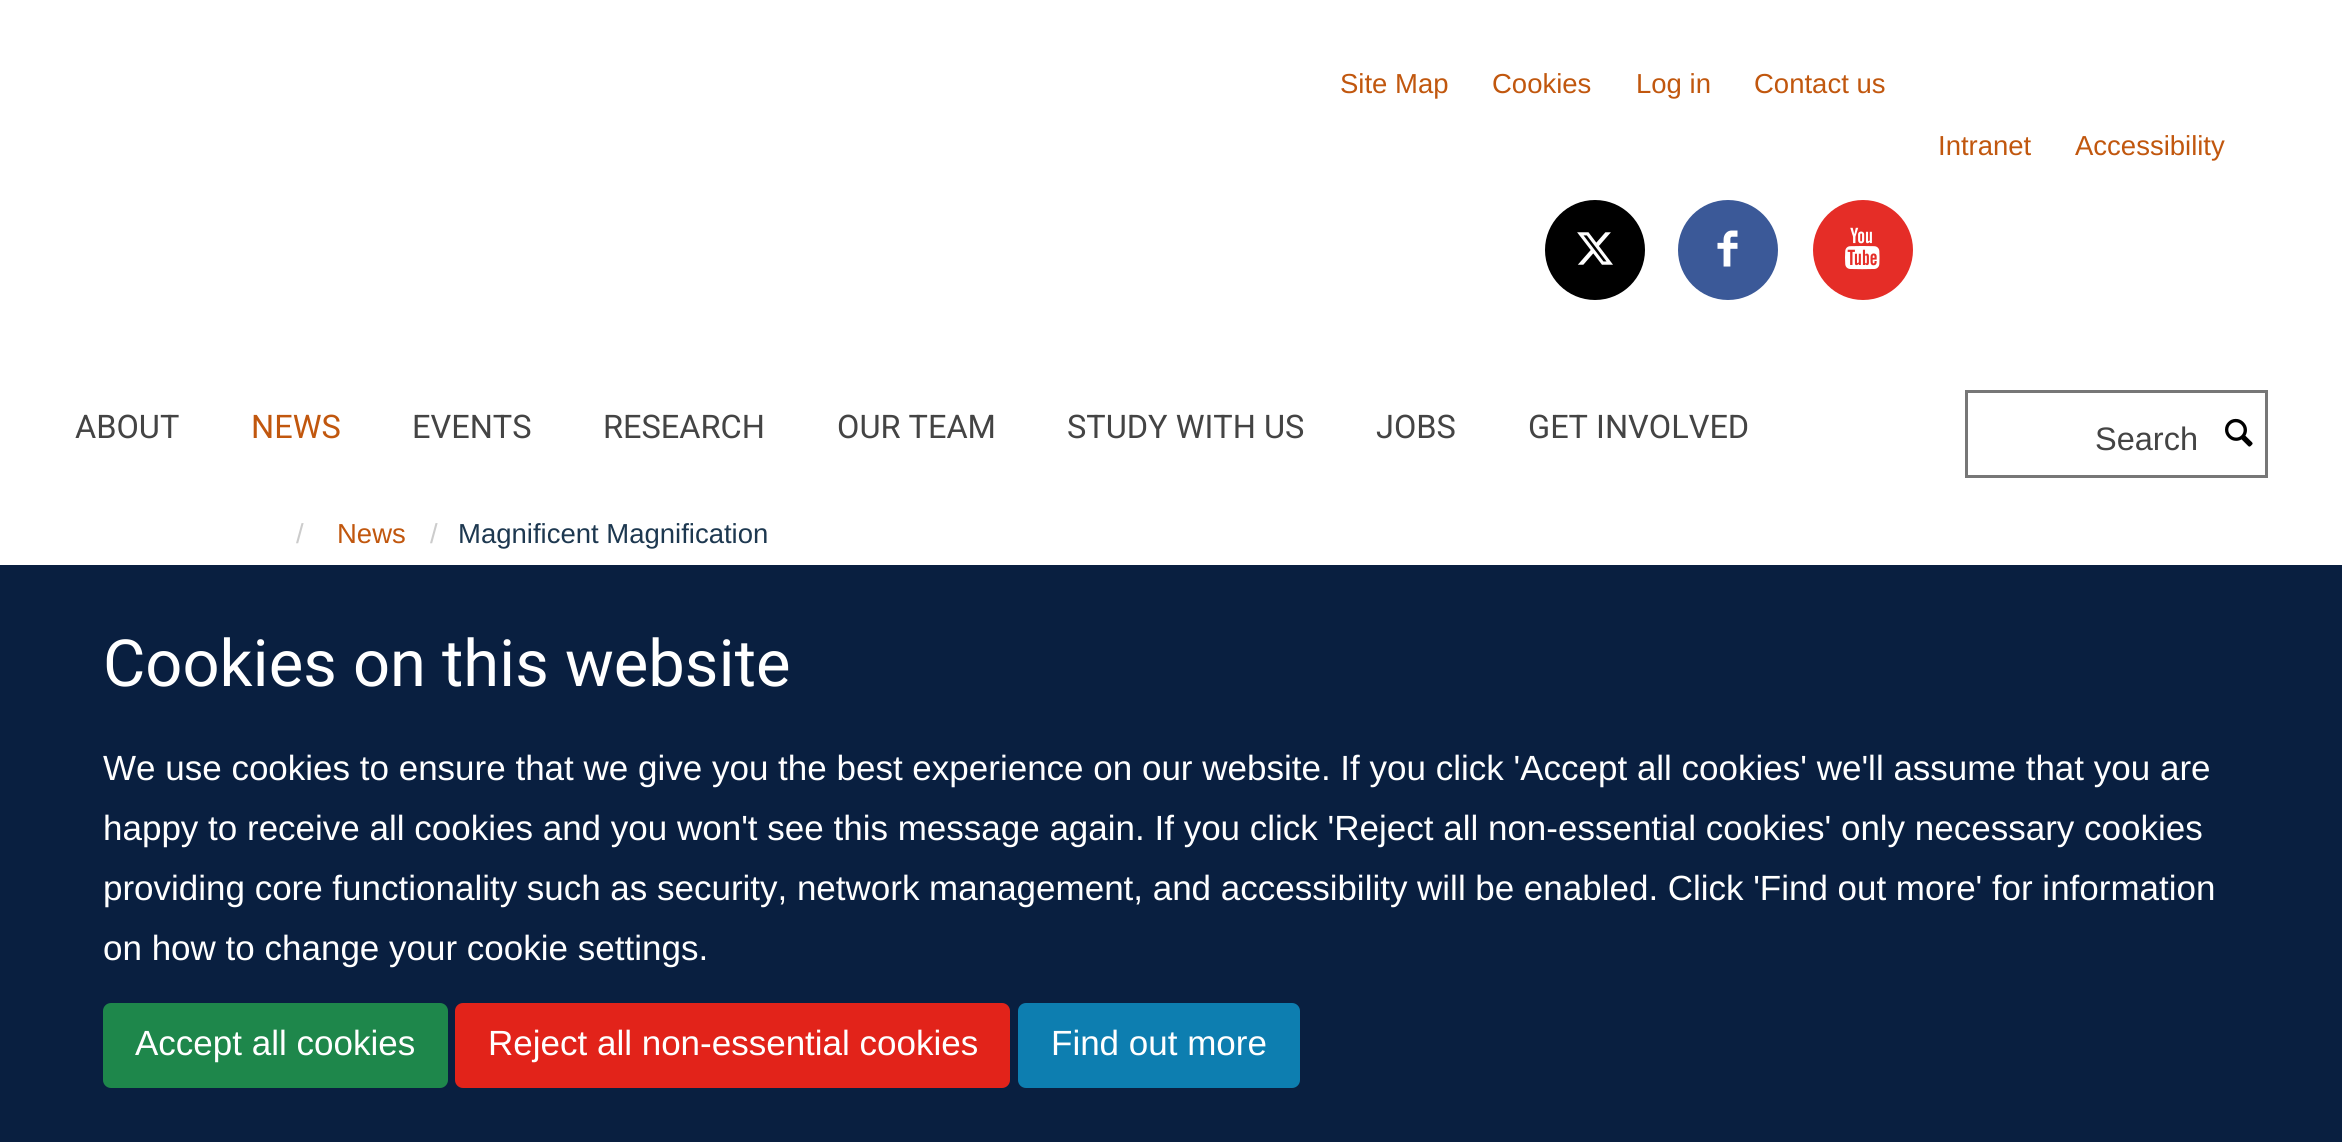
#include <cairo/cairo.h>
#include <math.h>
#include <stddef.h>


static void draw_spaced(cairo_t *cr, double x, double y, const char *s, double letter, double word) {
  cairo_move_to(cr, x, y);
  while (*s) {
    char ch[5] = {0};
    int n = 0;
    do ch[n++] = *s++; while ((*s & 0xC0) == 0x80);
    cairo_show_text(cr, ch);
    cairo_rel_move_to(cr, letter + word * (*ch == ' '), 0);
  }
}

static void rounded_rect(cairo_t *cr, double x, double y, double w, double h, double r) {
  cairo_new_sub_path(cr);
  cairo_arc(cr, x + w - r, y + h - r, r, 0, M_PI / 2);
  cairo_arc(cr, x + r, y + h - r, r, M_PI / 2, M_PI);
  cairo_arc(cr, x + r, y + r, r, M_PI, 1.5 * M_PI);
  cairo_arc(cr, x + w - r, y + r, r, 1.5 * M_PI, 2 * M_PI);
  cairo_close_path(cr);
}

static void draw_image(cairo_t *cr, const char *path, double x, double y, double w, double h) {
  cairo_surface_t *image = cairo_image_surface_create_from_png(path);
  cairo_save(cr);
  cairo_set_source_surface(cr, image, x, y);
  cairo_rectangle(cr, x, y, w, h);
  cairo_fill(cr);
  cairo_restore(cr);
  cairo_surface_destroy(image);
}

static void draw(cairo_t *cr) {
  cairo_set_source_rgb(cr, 1, 1, 1);
  cairo_paint(cr);
  cairo_set_source_rgb(cr, 0, 0, 0);
  cairo_arc(cr, 1595, 250, 50, 0, 2 * M_PI);
  cairo_fill(cr);
  draw_image(cr, "images/1.png", 1577, 232, 36, 33);
  cairo_set_source_rgb(cr, 59 / 255.0, 89 / 255.0, 152 / 255.0);
  cairo_arc(cr, 1728, 250, 50, 0, 2 * M_PI);
  cairo_fill(cr);
  draw_image(cr, "images/2.png", 1717, 230, 21, 37);
  cairo_set_source_rgb(cr, 229 / 255.0, 45 / 255.0, 39 / 255.0);
  cairo_arc(cr, 1863, 250, 50, 0, 2 * M_PI);
  cairo_fill(cr);
  draw_image(cr, "images/3.png", 1845, 227, 35, 43);
  cairo_rectangle(cr, 1966.5, 391.5, 300, 85);
  cairo_set_source_rgb(cr, 119 / 255.0, 119 / 255.0, 119 / 255.0);
  cairo_set_line_width(cr, 3);
  cairo_stroke(cr);
  draw_image(cr, "images/4.png", 2225, 418, 28, 29);
  cairo_set_source_rgb(cr, 9 / 255.0, 31 / 255.0, 64 / 255.0);
  cairo_rectangle(cr, 0, 565, 2342, 577);
  cairo_fill(cr);
  cairo_set_source_rgb(cr, 30 / 255.0, 135 / 255.0, 75 / 255.0);
  rounded_rect(cr, 104.5, 1004.5, 342, 82, 6.5);
  cairo_fill_preserve(cr);
  cairo_stroke(cr);
  cairo_set_source_rgb(cr, 226 / 255.0, 35 / 255.0, 26 / 255.0);
  rounded_rect(cr, 456.5, 1004.5, 552, 82, 6.5);
  cairo_fill_preserve(cr);
  cairo_stroke(cr);
  cairo_set_source_rgb(cr, 13 / 255.0, 126 / 255.0, 176 / 255.0);
  rounded_rect(cr, 1019.5, 1004.5, 279, 82, 6.5);
  cairo_fill_preserve(cr);
  cairo_stroke(cr);
  cairo_select_font_face(cr, "Liberation Sans", CAIRO_FONT_SLANT_NORMAL, CAIRO_FONT_WEIGHT_NORMAL);
  cairo_set_font_size(cr, 27.5);
  cairo_set_source_rgb(cr, 193 / 255.0, 87 / 255.0, 14 / 255.0);
  cairo_move_to(cr, 1340, 93);
  cairo_show_text(cr, "Site Map");
  cairo_move_to(cr, 1492, 93);
  cairo_show_text(cr, "Cookies");
  cairo_move_to(cr, 1636, 93);
  cairo_show_text(cr, "Log in");
  cairo_move_to(cr, 1754, 93);
  cairo_show_text(cr, "Contact us");
  cairo_move_to(cr, 1938, 155);
  cairo_show_text(cr, "Intranet");
  cairo_move_to(cr, 2075, 155);
  cairo_show_text(cr, "Accessibility");
  cairo_select_font_face(cr, "Heebo", CAIRO_FONT_SLANT_NORMAL, CAIRO_FONT_WEIGHT_NORMAL);
  cairo_set_font_size(cr, 32.5);
  cairo_set_source_rgb(cr, 68 / 255.0, 68 / 255.0, 68 / 255.0);
  cairo_move_to(cr, 75, 438);
  cairo_show_text(cr, "ABOUT");
  cairo_set_source_rgb(cr, 193 / 255.0, 87 / 255.0, 14 / 255.0);
  cairo_move_to(cr, 251, 438);
  cairo_show_text(cr, "NEWS");
  cairo_set_source_rgb(cr, 68 / 255.0, 68 / 255.0, 68 / 255.0);
  cairo_move_to(cr, 412, 438);
  cairo_show_text(cr, "EVENTS");
  cairo_move_to(cr, 603, 438);
  cairo_show_text(cr, "RESEARCH");
  cairo_move_to(cr, 837, 438);
  cairo_show_text(cr, "OUR TEAM");
  cairo_move_to(cr, 1067, 438);
  cairo_show_text(cr, "STUDY WITH US");
  cairo_move_to(cr, 1376, 438);
  cairo_show_text(cr, "JOBS");
  cairo_move_to(cr, 1528, 438);
  cairo_show_text(cr, "GET INVOLVED");
  cairo_select_font_face(cr, "Liberation Sans", CAIRO_FONT_SLANT_NORMAL, CAIRO_FONT_WEIGHT_NORMAL);
  cairo_move_to(cr, 2095, 450);
  cairo_show_text(cr, "Search");
  cairo_set_font_size(cr, 27.5);
  cairo_set_source_rgb(cr, 204 / 255.0, 204 / 255.0, 204 / 255.0);
  cairo_move_to(cr, 296, 543);
  cairo_show_text(cr, "/");
  cairo_set_source_rgb(cr, 193 / 255.0, 87 / 255.0, 14 / 255.0);
  cairo_move_to(cr, 337, 543);
  cairo_show_text(cr, "News");
  cairo_set_source_rgb(cr, 204 / 255.0, 204 / 255.0, 204 / 255.0);
  cairo_move_to(cr, 430, 543);
  cairo_show_text(cr, "/");
  cairo_set_source_rgb(cr, 29 / 255.0, 56 / 255.0, 80 / 255.0);
  cairo_move_to(cr, 458, 543);
  cairo_show_text(cr, "Magnificent Magnification");
  cairo_select_font_face(cr, "Heebo", CAIRO_FONT_SLANT_NORMAL, CAIRO_FONT_WEIGHT_NORMAL);
  cairo_set_font_size(cr, 65);
  cairo_set_source_rgb(cr, 1, 1, 1);
  cairo_move_to(cr, 103, 686);
  cairo_show_text(cr, "Cookies on this website");
  cairo_select_font_face(cr, "Liberation Sans", CAIRO_FONT_SLANT_NORMAL, CAIRO_FONT_WEIGHT_NORMAL);
  cairo_set_font_size(cr, 35);
  cairo_move_to(cr, 103, 780);
  cairo_show_text(cr, "We use cookies to ensure that we give you the best experience on our website. If you click 'Accept all cookies' we'll assume that you are");
  cairo_move_to(cr, 103, 840);
  cairo_show_text(cr, "happy to receive all cookies and you won't see this message again. If you click 'Reject all non-essential cookies' only necessary cookies");
  draw_spaced(cr, 103, 900, "providing core functionality such as security, network management, and accessibility will be enabled. Click 'Find out more' for information", 0, -0.1);
  cairo_move_to(cr, 103, 960);
  cairo_show_text(cr, "on how to change your cookie settings.");
  cairo_move_to(cr, 135, 1055);
  cairo_show_text(cr, "Accept all cookies");
  cairo_move_to(cr, 488, 1055);
  cairo_show_text(cr, "Reject all non-essential cookies");
  cairo_move_to(cr, 1051, 1055);
  cairo_show_text(cr, "Find out more");
}

int main(void) {
  cairo_surface_t *surface = cairo_image_surface_create(CAIRO_FORMAT_RGB24, 2342, 1142);
  cairo_t *cr = cairo_create(surface);
  cairo_font_options_t *options = cairo_font_options_create();
  cairo_font_options_set_hint_metrics(options, CAIRO_HINT_METRICS_OFF);
  cairo_font_options_set_hint_style(options, CAIRO_HINT_STYLE_NONE);
  cairo_set_font_options(cr, options);
  cairo_set_miter_limit(cr, 4);
  draw(cr);
  cairo_surface_write_to_png(surface, "out.png");
  cairo_font_options_destroy(options);
  cairo_destroy(cr);
  cairo_surface_destroy(surface);
  return 0;
}
